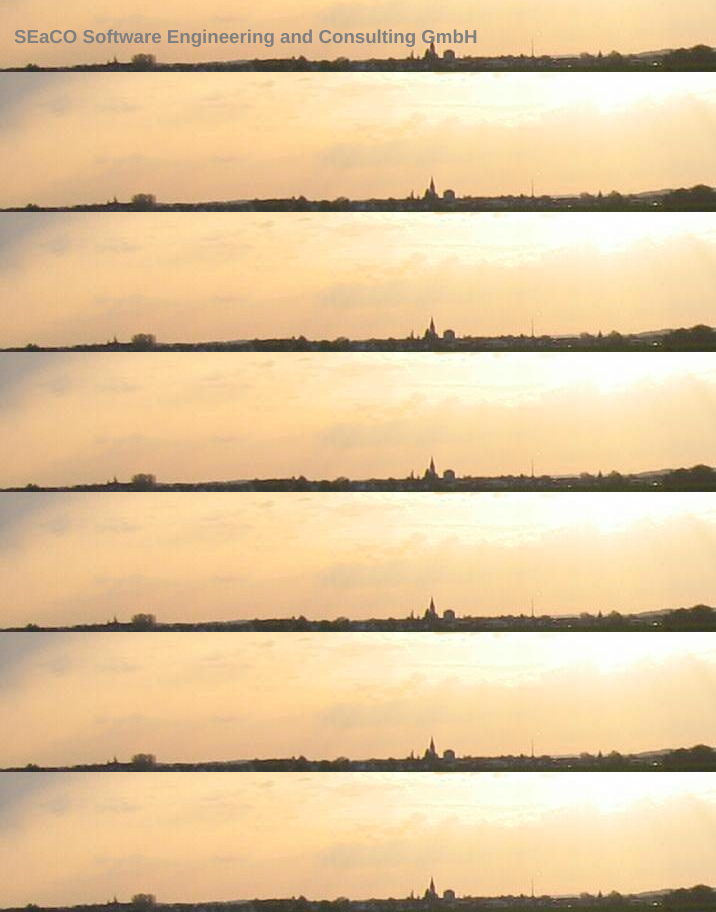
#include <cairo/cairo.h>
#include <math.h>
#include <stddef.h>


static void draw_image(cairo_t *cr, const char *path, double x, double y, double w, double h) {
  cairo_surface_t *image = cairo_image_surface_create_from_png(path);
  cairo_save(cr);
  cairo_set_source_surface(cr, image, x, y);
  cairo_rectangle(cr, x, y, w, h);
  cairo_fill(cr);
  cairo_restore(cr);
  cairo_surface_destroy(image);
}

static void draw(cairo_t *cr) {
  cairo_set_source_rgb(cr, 1, 1, 1);
  cairo_paint(cr);
  draw_image(cr, "images/1.png", 0, 0, 716, 912);
  cairo_select_font_face(cr, "Liberation Sans", CAIRO_FONT_SLANT_NORMAL, CAIRO_FONT_WEIGHT_BOLD);
  cairo_set_font_size(cr, 18.7);
  cairo_set_source_rgb(cr, 128 / 255.0, 128 / 255.0, 128 / 255.0);
  cairo_move_to(cr, 14, 43);
  cairo_show_text(cr, "SEaCO Software Engineering and Consulting GmbH");
}

int main(void) {
  cairo_surface_t *surface = cairo_image_surface_create(CAIRO_FORMAT_RGB24, 716, 912);
  cairo_t *cr = cairo_create(surface);
  cairo_font_options_t *options = cairo_font_options_create();
  cairo_font_options_set_hint_metrics(options, CAIRO_HINT_METRICS_OFF);
  cairo_font_options_set_hint_style(options, CAIRO_HINT_STYLE_NONE);
  cairo_set_font_options(cr, options);
  cairo_set_miter_limit(cr, 4);
  draw(cr);
  cairo_surface_write_to_png(surface, "out.png");
  cairo_font_options_destroy(options);
  cairo_destroy(cr);
  cairo_surface_destroy(surface);
  return 0;
}
